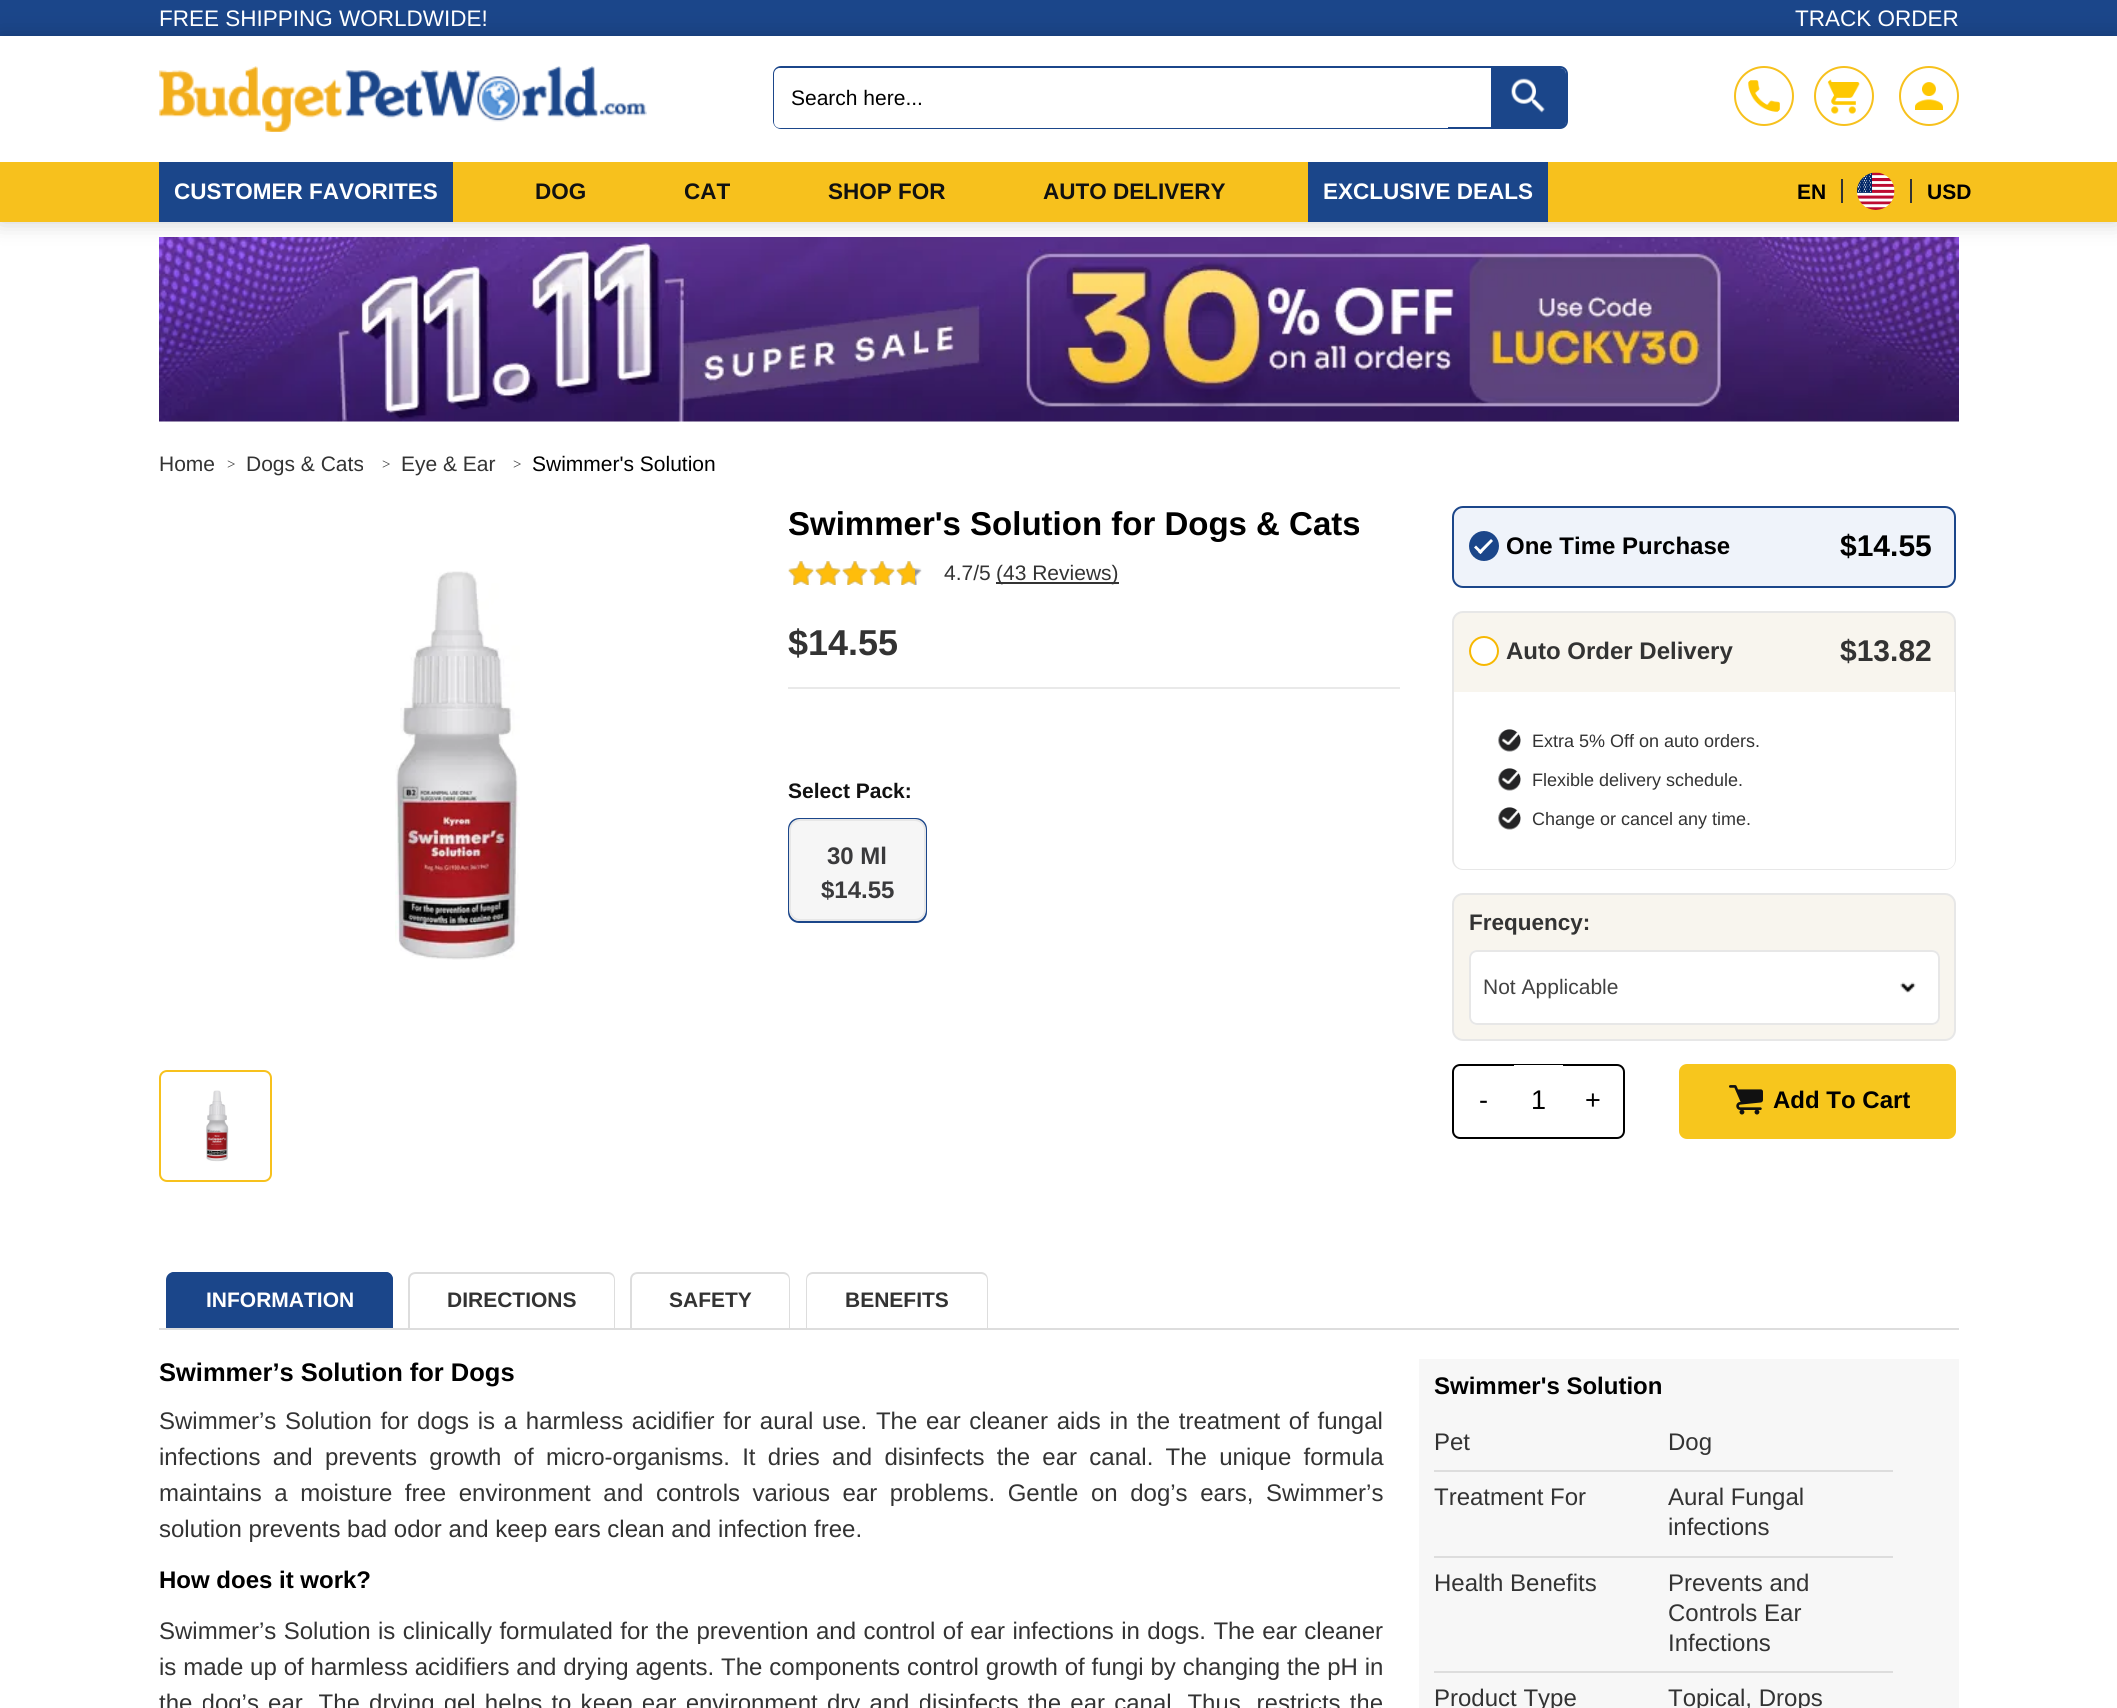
#include <cairo/cairo.h>
#include <math.h>
#include <stddef.h>


static void draw_spaced(cairo_t *cr, double x, double y, const char *s, double letter, double word) {
  cairo_move_to(cr, x, y);
  while (*s) {
    char ch[5] = {0};
    int n = 0;
    do ch[n++] = *s++; while ((*s & 0xC0) == 0x80);
    cairo_show_text(cr, ch);
    cairo_rel_move_to(cr, letter + word * (*ch == ' '), 0);
  }
}

static void rounded_rect(cairo_t *cr, double x, double y, double w, double h, double r) {
  cairo_new_sub_path(cr);
  cairo_arc(cr, x + w - r, y + h - r, r, 0, M_PI / 2);
  cairo_arc(cr, x + r, y + h - r, r, M_PI / 2, M_PI);
  cairo_arc(cr, x + r, y + r, r, M_PI, 1.5 * M_PI);
  cairo_arc(cr, x + w - r, y + r, r, 1.5 * M_PI, 2 * M_PI);
  cairo_close_path(cr);
}

static void draw_shadow(cairo_t *cr, double x, double y, double w, double h, double r, double blur, double alpha) {
  cairo_push_group_with_content(cr, CAIRO_CONTENT_ALPHA);
  cairo_set_operator(cr, CAIRO_OPERATOR_SOURCE);
  for (int i = 15; i >= -15 && fmin(w, h) + blur * i / 3 > 0; i -= 2) {
    double e = blur * i / 6;
    cairo_set_source_rgba(cr, 0, 0, 0, alpha * erfc((i - 1) / 8.5) / 2);
    rounded_rect(cr, x - e, y - e, w + 2 * e, h + 2 * e, fmax(0, fmin(r + e + blur * .6, fmin(w, h) / 2 + e)));
    cairo_fill(cr);
  }
  cairo_pattern_t *soft = cairo_pop_group(cr);
  cairo_mask(cr, soft);
  cairo_pattern_destroy(soft);
}

static void draw_image(cairo_t *cr, const char *path, double x, double y, double w, double h) {
  cairo_surface_t *image = cairo_image_surface_create_from_png(path);
  cairo_save(cr);
  cairo_set_source_surface(cr, image, x, y);
  cairo_rectangle(cr, x, y, w, h);
  cairo_fill(cr);
  cairo_restore(cr);
  cairo_surface_destroy(image);
}

static void draw(cairo_t *cr) {
  cairo_set_source_rgb(cr, 1, 1, 1);
  cairo_paint(cr);
  cairo_set_source_rgb(cr, 27 / 255.0, 70 / 255.0, 138 / 255.0);
  cairo_rectangle(cr, 0, 0, 2117, 36);
  cairo_fill(cr);
  draw_image(cr, "images/7.png", 159, 237, 1800, 185);
  cairo_save(cr);
  cairo_set_fill_rule(cr, CAIRO_FILL_RULE_EVEN_ODD);
  cairo_new_path(cr);
  cairo_move_to(cr, 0, 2);
  cairo_line_to(cr, 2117, 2);
  cairo_line_to(cr, 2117, 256);
  cairo_line_to(cr, 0, 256);
  cairo_close_path(cr);
  cairo_move_to(cr, 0, 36);
  cairo_line_to(cr, 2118, 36);
  cairo_line_to(cr, 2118, 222);
  cairo_line_to(cr, 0, 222);
  cairo_close_path(cr);
  cairo_clip(cr);
  cairo_set_source_rgb(cr, 0, 0, 0);
  draw_shadow(cr, 0, 36, 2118, 186, 0, 11, 0.2);
  cairo_restore(cr);
  draw_image(cr, "images/1.png", 159, 66, 488, 66);
  rounded_rect(cr, 774, 67, 793, 61, 7);
  cairo_stroke(cr);
  cairo_set_source_rgb(cr, 1, 1, 1);
  cairo_new_path(cr);
  cairo_move_to(cr, 780, 68);
  cairo_line_to(cr, 1448, 68);
  cairo_line_to(cr, 1448, 128);
  cairo_line_to(cr, 780, 128);
  cairo_curve_to(cr, 776.5, 128, 774, 125.5, 774, 122);
  cairo_line_to(cr, 774, 74);
  cairo_curve_to(cr, 774, 70.5, 776.5, 68, 780, 68);
  cairo_close_path(cr);
  cairo_fill(cr);
  cairo_set_source_rgb(cr, 27 / 255.0, 70 / 255.0, 138 / 255.0);
  cairo_new_path(cr);
  cairo_move_to(cr, 1491, 68);
  cairo_line_to(cr, 1560, 68);
  cairo_curve_to(cr, 1563.5, 68, 1566, 70.5, 1566, 74);
  cairo_line_to(cr, 1566, 122);
  cairo_curve_to(cr, 1566, 125.5, 1563.5, 128, 1560, 128);
  cairo_line_to(cr, 1491, 128);
  cairo_close_path(cr);
  cairo_fill(cr);
  draw_image(cr, "images/2.png", 1511, 78, 34, 35);
  cairo_arc(cr, 1764, 96, 29, 0, 2 * M_PI);
  cairo_set_source_rgb(cr, 247 / 255.0, 193 / 255.0, 29 / 255.0);
  cairo_stroke(cr);
  draw_image(cr, "images/3.png", 1748, 80, 32, 32);
  cairo_arc(cr, 1844, 96, 29, 0, 2 * M_PI);
  cairo_stroke(cr);
  draw_image(cr, "images/4.png", 1827, 79, 33, 35);
  cairo_arc(cr, 1929, 96, 29, 0, 2 * M_PI);
  cairo_stroke(cr);
  draw_image(cr, "images/5.png", 1915, 82, 28, 28);
  cairo_rectangle(cr, 0, 162, 2117, 60);
  cairo_fill(cr);
  cairo_set_source_rgb(cr, 27 / 255.0, 70 / 255.0, 138 / 255.0);
  cairo_rectangle(cr, 159, 162, 294, 60);
  cairo_fill(cr);
  cairo_rectangle(cr, 1308, 162, 240, 60);
  cairo_fill(cr);
  cairo_set_source_rgb(cr, 51 / 255.0, 51 / 255.0, 51 / 255.0);
  cairo_rectangle(cr, 1841, 179, 2, 24);
  cairo_fill(cr);
  draw_image(cr, "images/6.png", 1857, 172, 38, 38);
  cairo_rectangle(cr, 1910, 179, 2, 24);
  cairo_fill(cr);
  draw_image(cr, "images/8.png", 395, 571, 125, 389);
  rounded_rect(cr, 160, 1071, 111, 110, 7);
  cairo_set_source_rgb(cr, 247 / 255.0, 193 / 255.0, 29 / 255.0);
  cairo_stroke(cr);
  draw_image(cr, "images/9.png", 206, 1090, 23, 72);
  cairo_set_source_rgb(cr, 233 / 255.0, 233 / 255.0, 233 / 255.0);
  cairo_rectangle(cr, 788, 687, 612, 2);
  cairo_fill(cr);
  draw_image(cr, "images/10.png", 788, 561, 134, 24);
  draw_image(cr, "images/11.png", 788, 561, 127, 24);
  cairo_set_source_rgb(cr, 51 / 255.0, 51 / 255.0, 51 / 255.0);
  cairo_rectangle(cr, 996, 582, 123, 2);
  cairo_fill(cr);
  rounded_rect(cr, 789, 819, 137, 103, 10);
  cairo_set_source_rgb(cr, 27 / 255.0, 70 / 255.0, 138 / 255.0);
  cairo_stroke(cr);
  cairo_set_source_rgb(cr, 246 / 255.0, 246 / 255.0, 246 / 255.0);
  rounded_rect(cr, 790, 820, 135, 100, 10);
  cairo_fill_preserve(cr);
  cairo_set_source_rgb(cr, 231 / 255.0, 231 / 255.0, 231 / 255.0);
  cairo_stroke(cr);
  cairo_set_source_rgb(cr, 239 / 255.0, 243 / 255.0, 250 / 255.0);
  rounded_rect(cr, 1453, 507, 502, 80, 10);
  cairo_fill_preserve(cr);
  cairo_set_source_rgb(cr, 27 / 255.0, 70 / 255.0, 138 / 255.0);
  cairo_stroke(cr);
  cairo_arc(cr, 1484, 546, 14, 0, 2 * M_PI);
  cairo_fill_preserve(cr);
  cairo_stroke(cr);
  cairo_set_source_rgb(cr, 1, 1, 1);
  cairo_new_path(cr);
  cairo_move_to(cr, 1491, 539);
  cairo_line_to(cr, 1493, 541);
  cairo_line_to(cr, 1480.5, 554);
  cairo_line_to(cr, 1478, 552);
  cairo_close_path(cr);
  cairo_fill(cr);
  cairo_new_path(cr);
  cairo_move_to(cr, 1476, 545.5);
  cairo_line_to(cr, 1482.5, 552);
  cairo_line_to(cr, 1480.5, 554);
  cairo_line_to(cr, 1474, 547.5);
  cairo_close_path(cr);
  cairo_fill(cr);
  cairo_set_source_rgb(cr, 248 / 255.0, 245 / 255.0, 238 / 255.0);
  rounded_rect(cr, 1453, 612, 502, 257, 10);
  cairo_fill_preserve(cr);
  cairo_set_source_rgb(cr, 231 / 255.0, 231 / 255.0, 231 / 255.0);
  cairo_stroke(cr);
  cairo_set_source_rgb(cr, 1, 1, 1);
  cairo_arc(cr, 1484, 651, 14, 0, 2 * M_PI);
  cairo_fill_preserve(cr);
  cairo_set_source_rgb(cr, 247 / 255.0, 184 / 255.0, 1 / 255.0);
  cairo_stroke(cr);
  cairo_set_source_rgb(cr, 1, 1, 1);
  cairo_new_path(cr);
  cairo_move_to(cr, 1454, 692);
  cairo_line_to(cr, 1955, 692);
  cairo_line_to(cr, 1955, 860);
  cairo_curve_to(cr, 1955, 865, 1951, 869, 1946, 869);
  cairo_line_to(cr, 1463, 869);
  cairo_curve_to(cr, 1458, 869, 1454, 865, 1454, 860);
  cairo_close_path(cr);
  cairo_fill(cr);
  draw_image(cr, "images/12.png", 1498, 729, 23, 23);
  draw_image(cr, "images/12.png", 1498, 768, 23, 23);
  draw_image(cr, "images/12.png", 1498, 807, 23, 23);
  cairo_set_source_rgb(cr, 248 / 255.0, 245 / 255.0, 238 / 255.0);
  rounded_rect(cr, 1453, 894, 502, 146, 10);
  cairo_fill_preserve(cr);
  cairo_set_source_rgb(cr, 231 / 255.0, 231 / 255.0, 231 / 255.0);
  cairo_stroke(cr);
  cairo_set_source_rgb(cr, 1, 1, 1);
  rounded_rect(cr, 1469, 950, 471, 75, 8);
  cairo_fill(cr);
  draw_image(cr, "images/13.png", 1900, 982, 16, 11);
  rounded_rect(cr, 1470, 951, 469, 73, 7);
  cairo_set_source_rgb(cr, 231 / 255.0, 231 / 255.0, 231 / 255.0);
  cairo_stroke(cr);
  rounded_rect(cr, 1453, 1065, 171, 73, 7);
  cairo_set_source_rgb(cr, 0, 0, 0);
  cairo_stroke(cr);
  cairo_set_source_rgb(cr, 1, 1, 1);
  cairo_rectangle(cr, 1514, 1065, 49, 1);
  cairo_fill(cr);
  cairo_set_source_rgb(cr, 247 / 255.0, 198 / 255.0, 29 / 255.0);
  rounded_rect(cr, 1679, 1064, 277, 75, 8);
  cairo_fill(cr);
  draw_image(cr, "images/14.png", 1729, 1085, 34, 30);
  cairo_set_source_rgb(cr, 221 / 255.0, 221 / 255.0, 221 / 255.0);
  cairo_rectangle(cr, 159, 1328, 1800, 2);
  cairo_fill(cr);
  cairo_set_source_rgb(cr, 27 / 255.0, 70 / 255.0, 138 / 255.0);
  cairo_new_path(cr);
  cairo_move_to(cr, 175, 1272);
  cairo_line_to(cr, 385, 1272);
  cairo_curve_to(cr, 389.5, 1272, 393, 1275.5, 393, 1280);
  cairo_line_to(cr, 393, 1328);
  cairo_line_to(cr, 167, 1328);
  cairo_line_to(cr, 167, 1280);
  cairo_curve_to(cr, 167, 1275.5, 170.5, 1272, 175, 1272);
  cairo_close_path(cr);
  cairo_fill(cr);
  cairo_set_fill_rule(cr, CAIRO_FILL_RULE_EVEN_ODD);
  cairo_new_path(cr);
  cairo_move_to(cr, 174, 1272);
  cairo_line_to(cr, 386, 1272);
  cairo_curve_to(cr, 390, 1272, 393, 1275, 393, 1280);
  cairo_line_to(cr, 393, 1328);
  cairo_line_to(cr, 166, 1328);
  cairo_line_to(cr, 166, 1280);
  cairo_curve_to(cr, 166, 1275, 170, 1272, 174, 1272);
  cairo_close_path(cr);
  cairo_move_to(cr, 174, 1274);
  cairo_line_to(cr, 386, 1274);
  cairo_curve_to(cr, 389, 1274, 392, 1276, 392, 1280);
  cairo_line_to(cr, 392, 1328);
  cairo_line_to(cr, 168, 1328);
  cairo_line_to(cr, 168, 1280);
  cairo_curve_to(cr, 168, 1276, 171, 1274, 174, 1274);
  cairo_close_path(cr);
  cairo_fill(cr);
  cairo_set_source_rgb(cr, 221 / 255.0, 221 / 255.0, 221 / 255.0);
  cairo_new_path(cr);
  cairo_move_to(cr, 416, 1272);
  cairo_line_to(cr, 608, 1272);
  cairo_curve_to(cr, 612, 1272, 615, 1275, 615, 1280);
  cairo_line_to(cr, 615, 1328);
  cairo_line_to(cr, 408, 1328);
  cairo_line_to(cr, 408, 1280);
  cairo_curve_to(cr, 408, 1275, 411, 1272, 416, 1272);
  cairo_close_path(cr);
  cairo_move_to(cr, 416, 1274);
  cairo_line_to(cr, 608, 1274);
  cairo_curve_to(cr, 611, 1274, 614, 1276, 614, 1280);
  cairo_line_to(cr, 614, 1328);
  cairo_line_to(cr, 410, 1328);
  cairo_line_to(cr, 410, 1280);
  cairo_curve_to(cr, 410, 1276, 412, 1274, 416, 1274);
  cairo_close_path(cr);
  cairo_fill(cr);
  cairo_new_path(cr);
  cairo_move_to(cr, 638, 1272);
  cairo_line_to(cr, 783, 1272);
  cairo_curve_to(cr, 787, 1272, 790, 1275, 790, 1280);
  cairo_line_to(cr, 790, 1328);
  cairo_line_to(cr, 630, 1328);
  cairo_line_to(cr, 630, 1280);
  cairo_curve_to(cr, 630, 1275, 633, 1272, 638, 1272);
  cairo_close_path(cr);
  cairo_move_to(cr, 638, 1274);
  cairo_line_to(cr, 783, 1274);
  cairo_curve_to(cr, 786, 1274, 789, 1276, 789, 1280);
  cairo_line_to(cr, 789, 1328);
  cairo_line_to(cr, 632, 1328);
  cairo_line_to(cr, 632, 1280);
  cairo_curve_to(cr, 632, 1276, 634, 1274, 638, 1274);
  cairo_close_path(cr);
  cairo_fill(cr);
  cairo_new_path(cr);
  cairo_move_to(cr, 813, 1272);
  cairo_line_to(cr, 981, 1272);
  cairo_curve_to(cr, 985, 1272, 988, 1275, 988, 1280);
  cairo_line_to(cr, 988, 1328);
  cairo_line_to(cr, 806, 1328);
  cairo_line_to(cr, 806, 1280);
  cairo_curve_to(cr, 806, 1275, 809, 1272, 813, 1272);
  cairo_close_path(cr);
  cairo_move_to(cr, 813, 1274);
  cairo_line_to(cr, 981, 1274);
  cairo_curve_to(cr, 984, 1274, 987, 1276, 987, 1280);
  cairo_line_to(cr, 987, 1328);
  cairo_line_to(cr, 807, 1328);
  cairo_line_to(cr, 807, 1280);
  cairo_curve_to(cr, 807, 1276, 810, 1274, 813, 1274);
  cairo_close_path(cr);
  cairo_fill(cr);
  cairo_set_source_rgb(cr, 247 / 255.0, 247 / 255.0, 247 / 255.0);
  cairo_rectangle(cr, 1419, 1359, 540, 349);
  cairo_fill(cr);
  cairo_set_source_rgb(cr, 221 / 255.0, 221 / 255.0, 221 / 255.0);
  cairo_rectangle(cr, 1434, 1470, 459, 2);
  cairo_fill(cr);
  cairo_rectangle(cr, 1434, 1556, 459, 2);
  cairo_fill(cr);
  cairo_rectangle(cr, 1434, 1671, 459, 2);
  cairo_fill(cr);
  cairo_select_font_face(cr, "Liberation Sans", CAIRO_FONT_SLANT_NORMAL, CAIRO_FONT_WEIGHT_NORMAL);
  cairo_set_font_size(cr, 22.5);
  cairo_set_source_rgb(cr, 1, 1, 1);
  cairo_move_to(cr, 159, 26);
  cairo_show_text(cr, "FREE SHIPPING WORLDWIDE!");
  cairo_move_to(cr, 1795, 26);
  cairo_show_text(cr, "TRACK ORDER");
  cairo_set_font_size(cr, 21);
  cairo_set_source_rgb(cr, 0, 0, 0);
  cairo_move_to(cr, 791, 105);
  cairo_show_text(cr, "Search here...");
  cairo_select_font_face(cr, "Liberation Sans", CAIRO_FONT_SLANT_NORMAL, CAIRO_FONT_WEIGHT_BOLD);
  cairo_set_font_size(cr, 22.5);
  cairo_set_source_rgb(cr, 1, 1, 1);
  cairo_move_to(cr, 174, 199);
  cairo_show_text(cr, "CUSTOMER FAVORITES");
  cairo_set_source_rgb(cr, 17 / 255.0, 17 / 255.0, 17 / 255.0);
  cairo_move_to(cr, 535, 199);
  cairo_show_text(cr, "DOG");
  cairo_move_to(cr, 684, 199);
  cairo_show_text(cr, "CAT");
  cairo_move_to(cr, 828, 199);
  cairo_show_text(cr, "SHOP FOR");
  cairo_move_to(cr, 1043, 199);
  cairo_show_text(cr, "AUTO DELIVERY");
  cairo_set_source_rgb(cr, 1, 1, 1);
  cairo_move_to(cr, 1323, 199);
  cairo_show_text(cr, "EXCLUSIVE DEALS");
  cairo_set_font_size(cr, 21);
  cairo_set_source_rgb(cr, 0, 0, 0);
  cairo_move_to(cr, 1797, 199);
  cairo_show_text(cr, "EN");
  cairo_move_to(cr, 1927, 199);
  cairo_show_text(cr, "USD");
  cairo_select_font_face(cr, "Liberation Sans", CAIRO_FONT_SLANT_NORMAL, CAIRO_FONT_WEIGHT_NORMAL);
  cairo_set_source_rgb(cr, 51 / 255.0, 51 / 255.0, 51 / 255.0);
  cairo_move_to(cr, 159, 471);
  cairo_show_text(cr, "Home");
  cairo_select_font_face(cr, "Liberation Serif", CAIRO_FONT_SLANT_NORMAL, CAIRO_FONT_WEIGHT_NORMAL);
  cairo_set_font_size(cr, 15);
  cairo_move_to(cr, 227, 469);
  cairo_show_text(cr, ">");
  cairo_select_font_face(cr, "Liberation Sans", CAIRO_FONT_SLANT_NORMAL, CAIRO_FONT_WEIGHT_NORMAL);
  cairo_set_font_size(cr, 21);
  cairo_move_to(cr, 246, 471);
  cairo_show_text(cr, "Dogs & Cats");
  cairo_select_font_face(cr, "Liberation Serif", CAIRO_FONT_SLANT_NORMAL, CAIRO_FONT_WEIGHT_NORMAL);
  cairo_set_font_size(cr, 15);
  cairo_move_to(cr, 382, 469);
  cairo_show_text(cr, ">");
  cairo_select_font_face(cr, "Liberation Sans", CAIRO_FONT_SLANT_NORMAL, CAIRO_FONT_WEIGHT_NORMAL);
  cairo_set_font_size(cr, 21);
  cairo_move_to(cr, 401, 471);
  cairo_show_text(cr, "Eye & Ear");
  cairo_select_font_face(cr, "Liberation Serif", CAIRO_FONT_SLANT_NORMAL, CAIRO_FONT_WEIGHT_NORMAL);
  cairo_set_font_size(cr, 15);
  cairo_move_to(cr, 513, 469);
  cairo_show_text(cr, ">");
  cairo_select_font_face(cr, "Liberation Sans", CAIRO_FONT_SLANT_NORMAL, CAIRO_FONT_WEIGHT_NORMAL);
  cairo_set_font_size(cr, 21);
  cairo_set_source_rgb(cr, 0, 0, 0);
  cairo_move_to(cr, 532, 471);
  cairo_show_text(cr, "Swimmer's Solution");
  cairo_select_font_face(cr, "Liberation Sans", CAIRO_FONT_SLANT_NORMAL, CAIRO_FONT_WEIGHT_BOLD);
  cairo_set_font_size(cr, 33);
  cairo_move_to(cr, 788, 535);
  cairo_show_text(cr, "Swimmer's Solution for Dogs & Cats");
  cairo_select_font_face(cr, "Liberation Sans", CAIRO_FONT_SLANT_NORMAL, CAIRO_FONT_WEIGHT_NORMAL);
  cairo_set_font_size(cr, 21);
  cairo_set_source_rgb(cr, 51 / 255.0, 51 / 255.0, 51 / 255.0);
  cairo_move_to(cr, 944, 580);
  cairo_show_text(cr, "4.7/5");
  cairo_move_to(cr, 996, 580);
  cairo_show_text(cr, "(43 Reviews)");
  cairo_select_font_face(cr, "Liberation Sans", CAIRO_FONT_SLANT_NORMAL, CAIRO_FONT_WEIGHT_BOLD);
  cairo_set_font_size(cr, 36);
  cairo_move_to(cr, 788, 655);
  cairo_show_text(cr, "$14.55");
  cairo_set_font_size(cr, 21);
  cairo_set_source_rgb(cr, 17 / 255.0, 17 / 255.0, 17 / 255.0);
  cairo_move_to(cr, 788, 798);
  cairo_show_text(cr, "Select Pack:");
  cairo_set_font_size(cr, 24);
  cairo_set_source_rgb(cr, 58 / 255.0, 58 / 255.0, 60 / 255.0);
  cairo_move_to(cr, 827, 864);
  cairo_show_text(cr, "30 Ml");
  cairo_move_to(cr, 821, 898);
  cairo_show_text(cr, "$14.55");
  cairo_set_source_rgb(cr, 0, 0, 0);
  cairo_move_to(cr, 1506, 554);
  cairo_show_text(cr, "One Time Purchase");
  cairo_set_font_size(cr, 30);
  cairo_move_to(cr, 1840, 556);
  cairo_show_text(cr, "$14.55");
  cairo_set_font_size(cr, 24);
  cairo_set_source_rgb(cr, 51 / 255.0, 51 / 255.0, 51 / 255.0);
  cairo_move_to(cr, 1506, 659);
  cairo_show_text(cr, "Auto Order Delivery");
  cairo_set_font_size(cr, 30);
  cairo_move_to(cr, 1840, 661);
  cairo_show_text(cr, "$13.82");
  cairo_select_font_face(cr, "Liberation Sans", CAIRO_FONT_SLANT_NORMAL, CAIRO_FONT_WEIGHT_NORMAL);
  cairo_set_font_size(cr, 18);
  cairo_move_to(cr, 1532, 747);
  cairo_show_text(cr, "Extra 5% Off on auto orders.");
  cairo_move_to(cr, 1532, 786);
  cairo_show_text(cr, "Flexible delivery schedule.");
  cairo_move_to(cr, 1532, 825);
  cairo_show_text(cr, "Change or cancel any time.");
  cairo_select_font_face(cr, "Liberation Sans", CAIRO_FONT_SLANT_NORMAL, CAIRO_FONT_WEIGHT_BOLD);
  cairo_set_font_size(cr, 22.5);
  cairo_move_to(cr, 1469, 930);
  cairo_show_text(cr, "Frequency:");
  cairo_select_font_face(cr, "Liberation Sans", CAIRO_FONT_SLANT_NORMAL, CAIRO_FONT_WEIGHT_NORMAL);
  cairo_set_font_size(cr, 21);
  cairo_set_source_rgb(cr, 66 / 255.0, 66 / 255.0, 66 / 255.0);
  cairo_move_to(cr, 1483, 994);
  cairo_show_text(cr, "Not Applicable");
  cairo_set_font_size(cr, 27);
  cairo_set_source_rgb(cr, 0, 0, 0);
  cairo_move_to(cr, 1479, 1109);
  cairo_show_text(cr, "-");
  cairo_move_to(cr, 1531, 1109);
  cairo_show_text(cr, "1");
  cairo_move_to(cr, 1585, 1109);
  cairo_show_text(cr, "+");
  cairo_select_font_face(cr, "Liberation Sans", CAIRO_FONT_SLANT_NORMAL, CAIRO_FONT_WEIGHT_BOLD);
  cairo_set_font_size(cr, 24);
  cairo_move_to(cr, 1773, 1108);
  cairo_show_text(cr, "Add To Cart");
  cairo_set_font_size(cr, 21);
  cairo_set_source_rgb(cr, 1, 1, 1);
  cairo_move_to(cr, 206, 1307);
  cairo_show_text(cr, "INFORMATION");
  cairo_set_source_rgb(cr, 51 / 255.0, 51 / 255.0, 51 / 255.0);
  cairo_move_to(cr, 447, 1307);
  cairo_show_text(cr, "DIRECTIONS");
  cairo_move_to(cr, 669, 1307);
  cairo_show_text(cr, "SAFETY");
  cairo_move_to(cr, 845, 1307);
  cairo_show_text(cr, "BENEFITS");
  cairo_set_font_size(cr, 25.5);
  cairo_set_source_rgb(cr, 0, 0, 0);
  cairo_move_to(cr, 159, 1381);
  cairo_show_text(cr, "Swimmer’s Solution for Dogs");
  cairo_select_font_face(cr, "Liberation Sans", CAIRO_FONT_SLANT_NORMAL, CAIRO_FONT_WEIGHT_NORMAL);
  cairo_set_font_size(cr, 24);
  cairo_set_source_rgb(cr, 51 / 255.0, 51 / 255.0, 51 / 255.0);
  draw_spaced(cr, 159, 1429, "Swimmer’s Solution for dogs is a harmless acidifier for aural use. The ear cleaner aids in the treatment of fungal", 0, 2);
  draw_spaced(cr, 159, 1465, "infections and prevents growth of micro-organisms. It dries and disinfects the ear canal. The unique formula", 0, 5.6);
  draw_spaced(cr, 159, 1501, "maintains a moisture free environment and controls various ear problems. Gentle on dog’s ears, Swimmer’s", 0, 5.9);
  cairo_move_to(cr, 159, 1537);
  cairo_show_text(cr, "solution prevents bad odor and keep ears clean and infection free.");
  cairo_select_font_face(cr, "Liberation Sans", CAIRO_FONT_SLANT_NORMAL, CAIRO_FONT_WEIGHT_BOLD);
  cairo_set_source_rgb(cr, 0, 0, 0);
  cairo_move_to(cr, 159, 1588);
  cairo_show_text(cr, "How does it work?");
  cairo_select_font_face(cr, "Liberation Sans", CAIRO_FONT_SLANT_NORMAL, CAIRO_FONT_WEIGHT_NORMAL);
  cairo_set_source_rgb(cr, 51 / 255.0, 51 / 255.0, 51 / 255.0);
  draw_spaced(cr, 159, 1639, "Swimmer’s Solution is clinically formulated for the prevention and control of ear infections in dogs. The ear cleaner", 0, 0.75);
  draw_spaced(cr, 159, 1675, "is made up of harmless acidifiers and drying agents. The components control growth of fungi by changing the pH in", 0, 0.2);
  draw_spaced(cr, 159, 1711, "the dog’s ear. The drying gel helps to keep ear environment dry and disinfects the ear canal. Thus, restricts the", 0, 2.5);
  cairo_select_font_face(cr, "Liberation Sans", CAIRO_FONT_SLANT_NORMAL, CAIRO_FONT_WEIGHT_BOLD);
  cairo_set_source_rgb(cr, 0, 0, 0);
  cairo_move_to(cr, 1434, 1394);
  cairo_show_text(cr, "Swimmer's Solution");
  cairo_select_font_face(cr, "Liberation Sans", CAIRO_FONT_SLANT_NORMAL, CAIRO_FONT_WEIGHT_NORMAL);
  cairo_set_source_rgb(cr, 51 / 255.0, 51 / 255.0, 51 / 255.0);
  cairo_move_to(cr, 1434, 1450);
  cairo_show_text(cr, "Pet");
  cairo_move_to(cr, 1668, 1450);
  cairo_show_text(cr, "Dog");
  cairo_move_to(cr, 1434, 1505);
  cairo_show_text(cr, "Treatment For");
  cairo_move_to(cr, 1668, 1505);
  cairo_show_text(cr, "Aural Fungal");
  cairo_move_to(cr, 1668, 1535);
  cairo_show_text(cr, "infections");
  cairo_move_to(cr, 1434, 1591);
  cairo_show_text(cr, "Health Benefits");
  cairo_move_to(cr, 1668, 1591);
  cairo_show_text(cr, "Prevents and");
  cairo_move_to(cr, 1668, 1621);
  cairo_show_text(cr, "Controls Ear");
  cairo_move_to(cr, 1668, 1651);
  cairo_show_text(cr, "Infections");
  cairo_move_to(cr, 1434, 1706);
  cairo_show_text(cr, "Product Type");
  cairo_move_to(cr, 1668, 1706);
  cairo_show_text(cr, "Topical, Drops");
}

int main(void) {
  cairo_surface_t *surface = cairo_image_surface_create(CAIRO_FORMAT_RGB24, 2117, 1708);
  cairo_t *cr = cairo_create(surface);
  cairo_font_options_t *options = cairo_font_options_create();
  cairo_font_options_set_hint_metrics(options, CAIRO_HINT_METRICS_OFF);
  cairo_font_options_set_hint_style(options, CAIRO_HINT_STYLE_NONE);
  cairo_set_font_options(cr, options);
  cairo_set_miter_limit(cr, 4);
  draw(cr);
  cairo_surface_write_to_png(surface, "out.png");
  cairo_font_options_destroy(options);
  cairo_destroy(cr);
  cairo_surface_destroy(surface);
  return 0;
}
